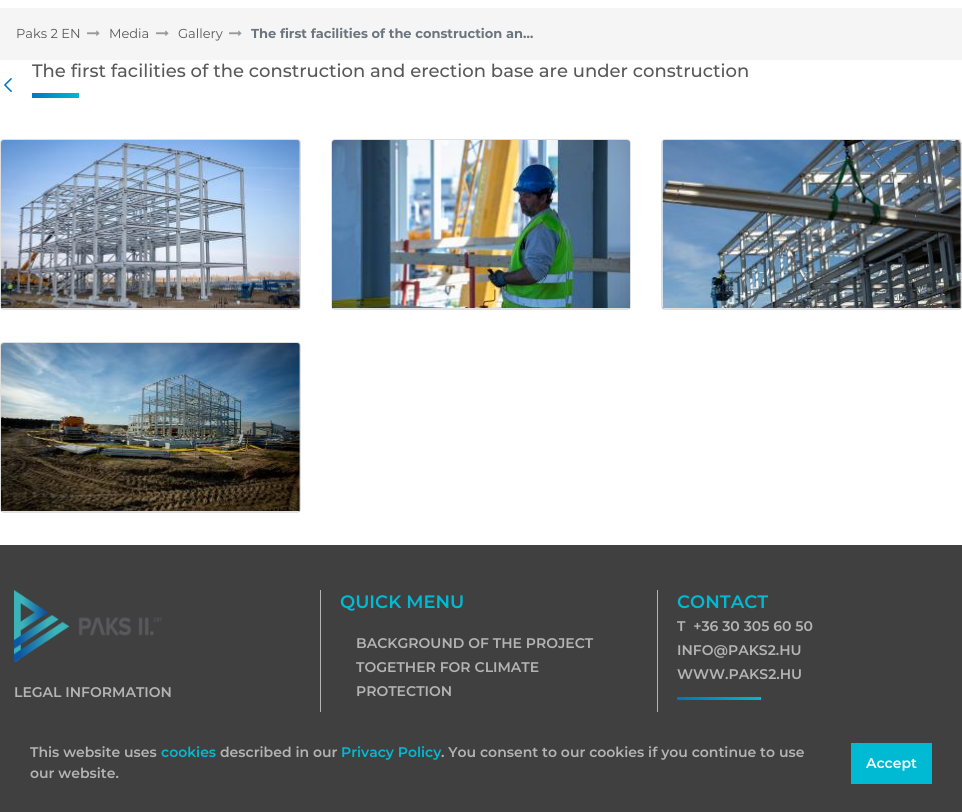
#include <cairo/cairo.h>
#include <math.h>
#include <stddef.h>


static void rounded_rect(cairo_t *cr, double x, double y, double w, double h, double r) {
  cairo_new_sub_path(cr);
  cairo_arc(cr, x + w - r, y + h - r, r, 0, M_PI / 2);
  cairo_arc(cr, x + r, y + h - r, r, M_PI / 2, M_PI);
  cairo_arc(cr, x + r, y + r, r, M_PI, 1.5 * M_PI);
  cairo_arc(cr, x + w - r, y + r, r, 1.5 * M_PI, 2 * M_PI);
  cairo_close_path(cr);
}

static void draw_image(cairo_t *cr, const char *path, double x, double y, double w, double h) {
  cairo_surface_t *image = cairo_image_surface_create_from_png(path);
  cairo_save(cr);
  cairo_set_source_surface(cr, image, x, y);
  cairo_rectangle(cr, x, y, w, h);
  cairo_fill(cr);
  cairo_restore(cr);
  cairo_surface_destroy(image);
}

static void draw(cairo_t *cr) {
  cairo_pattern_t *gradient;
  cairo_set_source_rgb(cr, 1, 1, 1);
  cairo_paint(cr);
  cairo_set_source_rgb(cr, 245 / 255.0, 245 / 255.0, 245 / 255.0);
  cairo_rectangle(cr, 0, 8, 962, 52);
  cairo_fill(cr);
  draw_image(cr, "images/1.png", 87, 30, 13, 6);
  draw_image(cr, "images/1.png", 156, 30, 13, 6);
  draw_image(cr, "images/1.png", 229, 30, 13, 6);
  gradient = cairo_pattern_create_linear(32, 96, 79, 96);
  cairo_pattern_add_color_stop_rgba(gradient, 0, 0, 121 / 255.0, 187 / 255.0, 1);
  cairo_pattern_add_color_stop_rgba(gradient, 1, 0, 184 / 255.0, 210 / 255.0, 1);
  cairo_set_source(cr, gradient);
  cairo_pattern_destroy(gradient);
  cairo_rectangle(cr, 32, 93, 47, 5);
  cairo_fill(cr);
  draw_image(cr, "images/2.png", 4, 78, 8, 14);
  rounded_rect(cr, 0.5, 139.5, 300, 170, 3.5);
  cairo_set_source_rgb(cr, 223 / 255.0, 223 / 255.0, 223 / 255.0);
  cairo_set_line_width(cr, 1);
  cairo_stroke(cr);
  cairo_set_source_rgba(cr, 0, 0, 0, 0.12);
  cairo_rectangle(cr, 1, 308, 299, 1);
  cairo_fill(cr);
  draw_image(cr, "images/3.png", 1, 140, 299, 168);
  rounded_rect(cr, 331.5, 139.5, 299, 170, 3.5);
  cairo_set_source_rgb(cr, 223 / 255.0, 223 / 255.0, 223 / 255.0);
  cairo_stroke(cr);
  cairo_set_source_rgba(cr, 0, 0, 0, 0.12);
  cairo_rectangle(cr, 332, 308, 298, 1);
  cairo_fill(cr);
  draw_image(cr, "images/4.png", 332, 140, 298, 168);
  rounded_rect(cr, 661.5, 139.5, 300, 170, 3.5);
  cairo_set_source_rgb(cr, 223 / 255.0, 223 / 255.0, 223 / 255.0);
  cairo_stroke(cr);
  cairo_set_source_rgba(cr, 0, 0, 0, 0.12);
  cairo_rectangle(cr, 662, 308, 299, 1);
  cairo_fill(cr);
  draw_image(cr, "images/5.png", 662, 140, 299, 168);
  rounded_rect(cr, 0.5, 342.5, 300, 170, 3.5);
  cairo_set_source_rgb(cr, 223 / 255.0, 223 / 255.0, 223 / 255.0);
  cairo_stroke(cr);
  cairo_set_source_rgba(cr, 0, 0, 0, 0.12);
  cairo_rectangle(cr, 1, 511, 299, 1);
  cairo_fill(cr);
  draw_image(cr, "images/6.png", 1, 343, 299, 168);
  cairo_set_source_rgb(cr, 64 / 255.0, 64 / 255.0, 65 / 255.0);
  cairo_rectangle(cr, 0, 545, 962, 267);
  cairo_fill(cr);
  cairo_set_source_rgb(cr, 180 / 255.0, 180 / 255.0, 180 / 255.0);
  cairo_rectangle(cr, 320, 590, 1, 122);
  cairo_fill(cr);
  cairo_rectangle(cr, 657, 590, 1, 122);
  cairo_fill(cr);
  gradient = cairo_pattern_create_linear(761, 699, 677, 699);
  cairo_pattern_add_color_stop_rgba(gradient, 0, 0, 185 / 255.0, 211 / 255.0, 1);
  cairo_pattern_add_color_stop_rgba(gradient, 1, 0, 117 / 255.0, 191 / 255.0, 1);
  cairo_set_source(cr, gradient);
  cairo_pattern_destroy(gradient);
  cairo_rectangle(cr, 677, 697, 84, 3);
  cairo_fill(cr);
  draw_image(cr, "images/7.png", 14, 590, 148, 72);
  cairo_set_source_rgb(cr, 0, 186 / 255.0, 212 / 255.0);
  cairo_rectangle(cr, 851, 743, 81, 41);
  cairo_fill(cr);
  cairo_select_font_face(cr, "Montserrat", CAIRO_FONT_SLANT_NORMAL, CAIRO_FONT_WEIGHT_NORMAL);
  cairo_set_font_size(cr, 13);
  cairo_set_source_rgb(cr, 88 / 255.0, 88 / 255.0, 90 / 255.0);
  cairo_move_to(cr, 16, 38);
  cairo_show_text(cr, "Paks 2 EN");
  cairo_move_to(cr, 109, 38);
  cairo_show_text(cr, "Media");
  cairo_move_to(cr, 178, 38);
  cairo_show_text(cr, "Gallery");
  cairo_select_font_face(cr, "Montserrat", CAIRO_FONT_SLANT_NORMAL, CAIRO_FONT_WEIGHT_BOLD);
  cairo_set_source_rgb(cr, 108 / 255.0, 117 / 255.0, 125 / 255.0);
  cairo_move_to(cr, 251, 38);
  cairo_show_text(cr, "The first facilities of the construction an…");
  cairo_select_font_face(cr, "Montserrat Medium", CAIRO_FONT_SLANT_NORMAL, CAIRO_FONT_WEIGHT_NORMAL);
  cairo_set_font_size(cr, 18);
  cairo_set_source_rgb(cr, 88 / 255.0, 88 / 255.0, 90 / 255.0);
  cairo_move_to(cr, 32, 77);
  cairo_show_text(cr, "The first facilities of the construction and erection base are under construction");
  cairo_select_font_face(cr, "Montserrat SemiBold", CAIRO_FONT_SLANT_NORMAL, CAIRO_FONT_WEIGHT_NORMAL);
  cairo_set_source_rgb(cr, 0, 186 / 255.0, 212 / 255.0);
  cairo_move_to(cr, 340, 608);
  cairo_show_text(cr, "QUICK MENU");
  cairo_set_font_size(cr, 14);
  cairo_set_source_rgb(cr, 180 / 255.0, 180 / 255.0, 180 / 255.0);
  cairo_move_to(cr, 356, 648);
  cairo_show_text(cr, "BACKGROUND OF THE PROJECT");
  cairo_move_to(cr, 356, 672);
  cairo_show_text(cr, "TOGETHER FOR CLIMATE");
  cairo_move_to(cr, 356, 696);
  cairo_show_text(cr, "PROTECTION");
  cairo_set_font_size(cr, 18);
  cairo_set_source_rgb(cr, 0, 186 / 255.0, 212 / 255.0);
  cairo_move_to(cr, 677, 608);
  cairo_show_text(cr, "CONTACT");
  cairo_set_font_size(cr, 14);
  cairo_set_source_rgb(cr, 180 / 255.0, 180 / 255.0, 180 / 255.0);
  cairo_move_to(cr, 677, 631);
  cairo_show_text(cr, "T  +36 30 305 60 50");
  cairo_move_to(cr, 677, 655);
  cairo_show_text(cr, "INFO@PAKS2.HU");
  cairo_move_to(cr, 677, 679);
  cairo_show_text(cr, "WWW.PAKS2.HU");
  cairo_move_to(cr, 14, 697);
  cairo_show_text(cr, "LEGAL INFORMATION");
  cairo_move_to(cr, 30, 757);
  cairo_show_text(cr, "This website uses");
  cairo_set_source_rgb(cr, 0, 186 / 255.0, 212 / 255.0);
  cairo_move_to(cr, 161, 757);
  cairo_show_text(cr, "cookies");
  cairo_set_source_rgb(cr, 180 / 255.0, 180 / 255.0, 180 / 255.0);
  cairo_move_to(cr, 220, 757);
  cairo_show_text(cr, "described in our");
  cairo_set_source_rgb(cr, 0, 186 / 255.0, 212 / 255.0);
  cairo_move_to(cr, 341, 757);
  cairo_show_text(cr, "Privacy Policy");
  cairo_set_source_rgb(cr, 180 / 255.0, 180 / 255.0, 180 / 255.0);
  cairo_move_to(cr, 441, 757);
  cairo_show_text(cr, ". You consent to our cookies if you continue to use");
  cairo_move_to(cr, 30, 778);
  cairo_show_text(cr, "our website.");
  cairo_set_source_rgb(cr, 1, 1, 1);
  cairo_move_to(cr, 866, 768);
  cairo_show_text(cr, "Accept");
}

int main(void) {
  cairo_surface_t *surface = cairo_image_surface_create(CAIRO_FORMAT_RGB24, 962, 812);
  cairo_t *cr = cairo_create(surface);
  cairo_font_options_t *options = cairo_font_options_create();
  cairo_font_options_set_hint_metrics(options, CAIRO_HINT_METRICS_OFF);
  cairo_font_options_set_hint_style(options, CAIRO_HINT_STYLE_NONE);
  cairo_set_font_options(cr, options);
  cairo_set_miter_limit(cr, 4);
  draw(cr);
  cairo_surface_write_to_png(surface, "out.png");
  cairo_font_options_destroy(options);
  cairo_destroy(cr);
  cairo_surface_destroy(surface);
  return 0;
}
